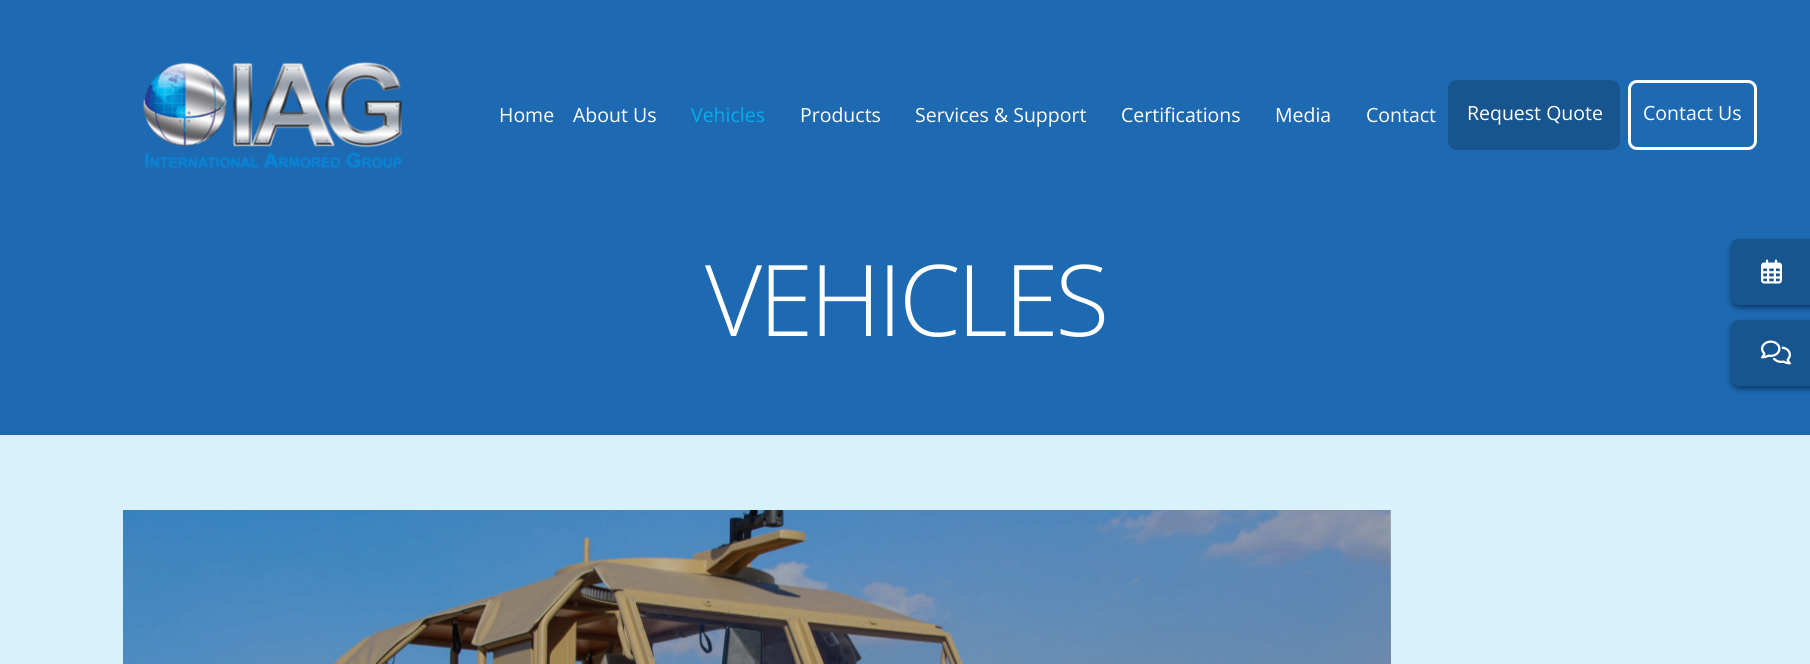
#include <cairo/cairo.h>
#include <math.h>
#include <stddef.h>


static void draw_spaced(cairo_t *cr, double x, double y, const char *s, double letter, double word) {
  cairo_move_to(cr, x, y);
  while (*s) {
    char ch[5] = {0};
    int n = 0;
    do ch[n++] = *s++; while ((*s & 0xC0) == 0x80);
    cairo_show_text(cr, ch);
    cairo_rel_move_to(cr, letter + word * (*ch == ' '), 0);
  }
}

static void rounded_rect(cairo_t *cr, double x, double y, double w, double h, double r) {
  cairo_new_sub_path(cr);
  cairo_arc(cr, x + w - r, y + h - r, r, 0, M_PI / 2);
  cairo_arc(cr, x + r, y + h - r, r, M_PI / 2, M_PI);
  cairo_arc(cr, x + r, y + r, r, M_PI, 1.5 * M_PI);
  cairo_arc(cr, x + w - r, y + r, r, 1.5 * M_PI, 2 * M_PI);
  cairo_close_path(cr);
}

static void draw_shadow(cairo_t *cr, double x, double y, double w, double h, double r, double blur, double alpha) {
  cairo_push_group_with_content(cr, CAIRO_CONTENT_ALPHA);
  cairo_set_operator(cr, CAIRO_OPERATOR_SOURCE);
  for (int i = 15; i >= -15 && fmin(w, h) + blur * i / 3 > 0; i -= 2) {
    double e = blur * i / 6;
    cairo_set_source_rgba(cr, 0, 0, 0, alpha * erfc((i - 1) / 8.5) / 2);
    rounded_rect(cr, x - e, y - e, w + 2 * e, h + 2 * e, fmax(0, fmin(r + e + blur * .6, fmin(w, h) / 2 + e)));
    cairo_fill(cr);
  }
  cairo_pattern_t *soft = cairo_pop_group(cr);
  cairo_mask(cr, soft);
  cairo_pattern_destroy(soft);
}

static void draw_image(cairo_t *cr, const char *path, double x, double y, double w, double h) {
  cairo_surface_t *image = cairo_image_surface_create_from_png(path);
  cairo_save(cr);
  cairo_set_source_surface(cr, image, x, y);
  cairo_rectangle(cr, x, y, w, h);
  cairo_fill(cr);
  cairo_restore(cr);
  cairo_surface_destroy(image);
}

static void draw(cairo_t *cr) {
  cairo_pattern_t *gradient;
  cairo_set_source_rgb(cr, 30 / 255.0, 106 / 255.0, 178 / 255.0);
  cairo_paint(cr);
  draw_image(cr, "images/1.png", 143, 62, 259, 106);
  cairo_set_source_rgb(cr, 24 / 255.0, 85 / 255.0, 143 / 255.0);
  rounded_rect(cr, 1448, 80, 172, 70, 9);
  cairo_fill(cr);
  rounded_rect(cr, 1629.5, 81.5, 126, 67, 7.5);
  cairo_set_source_rgb(cr, 1, 1, 1);
  cairo_set_line_width(cr, 3);
  cairo_stroke(cr);
  cairo_set_source_rgb(cr, 10 / 255.0, 58 / 255.0, 104 / 255.0);
  draw_shadow(cr, 1731, 242, 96, 66, 8, 3, 1);
  cairo_set_source_rgb(cr, 24 / 255.0, 85 / 255.0, 143 / 255.0);
  cairo_new_path(cr);
  cairo_move_to(cr, 1739, 239);
  cairo_line_to(cr, 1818, 239);
  cairo_line_to(cr, 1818, 305);
  cairo_line_to(cr, 1739, 305);
  cairo_curve_to(cr, 1734.5, 305, 1731, 301.5, 1731, 297);
  cairo_line_to(cr, 1731, 247);
  cairo_curve_to(cr, 1731, 242.5, 1734.5, 239, 1739, 239);
  cairo_close_path(cr);
  cairo_fill(cr);
  draw_image(cr, "images/2.png", 1761, 259, 21, 25);
  cairo_set_source_rgb(cr, 10 / 255.0, 58 / 255.0, 104 / 255.0);
  draw_shadow(cr, 1731, 323, 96, 66, 8, 3, 1);
  cairo_set_source_rgb(cr, 24 / 255.0, 85 / 255.0, 143 / 255.0);
  cairo_new_path(cr);
  cairo_move_to(cr, 1739, 320);
  cairo_line_to(cr, 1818, 320);
  cairo_line_to(cr, 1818, 386);
  cairo_line_to(cr, 1739, 386);
  cairo_curve_to(cr, 1734.5, 386, 1731, 382.5, 1731, 378);
  cairo_line_to(cr, 1731, 328);
  cairo_curve_to(cr, 1731, 323.5, 1734.5, 320, 1739, 320);
  cairo_close_path(cr);
  cairo_fill(cr);
  draw_image(cr, "images/3.png", 1761, 340, 30, 25);
  cairo_set_source_rgb(cr, 216 / 255.0, 241 / 255.0, 250 / 255.0);
  cairo_rectangle(cr, 0, 435, 1810, 229);
  cairo_fill(cr);
  gradient = cairo_pattern_create_linear(757, 510, 757, 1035);
  cairo_pattern_add_color_stop_rgba(gradient, 0, 165 / 255.0, 182 / 255.0, 188 / 255.0, 1);
  cairo_pattern_add_color_stop_rgba(gradient, 1, 23 / 255.0, 24 / 255.0, 25 / 255.0, 1);
  cairo_set_source(cr, gradient);
  cairo_pattern_destroy(gradient);
  cairo_rectangle(cr, 1390, 510, 1, 154);
  cairo_fill(cr);
  draw_image(cr, "images/4.png", 123, 510, 1268, 154);
  cairo_select_font_face(cr, "Open Sans", CAIRO_FONT_SLANT_NORMAL, CAIRO_FONT_WEIGHT_NORMAL);
  cairo_set_font_size(cr, 19.5);
  cairo_set_source_rgb(cr, 1, 1, 1);
  cairo_move_to(cr, 499, 122);
  cairo_show_text(cr, "Home");
  cairo_move_to(cr, 573, 122);
  cairo_show_text(cr, "About Us");
  cairo_set_source_rgb(cr, 4 / 255.0, 172 / 255.0, 234 / 255.0);
  cairo_move_to(cr, 691, 122);
  cairo_show_text(cr, "Vehicles");
  cairo_set_source_rgb(cr, 1, 1, 1);
  cairo_move_to(cr, 800, 122);
  cairo_show_text(cr, "Products");
  cairo_move_to(cr, 915, 122);
  cairo_show_text(cr, "Services & Support");
  cairo_move_to(cr, 1121, 122);
  cairo_show_text(cr, "Certifications");
  cairo_move_to(cr, 1275, 122);
  cairo_show_text(cr, "Media");
  cairo_move_to(cr, 1366, 122);
  cairo_show_text(cr, "Contact");
  cairo_move_to(cr, 1467, 120);
  cairo_show_text(cr, "Request Quote");
  cairo_move_to(cr, 1643, 120);
  cairo_show_text(cr, "Contact Us");
  cairo_select_font_face(cr, "Open Sans Light", CAIRO_FONT_SLANT_NORMAL, CAIRO_FONT_WEIGHT_NORMAL);
  cairo_set_font_size(cr, 99);
  draw_spaced(cr, 705, 336, "VEHICLES", -3.5, 0);
}

int main(void) {
  cairo_surface_t *surface = cairo_image_surface_create(CAIRO_FORMAT_RGB24, 1810, 664);
  cairo_t *cr = cairo_create(surface);
  cairo_font_options_t *options = cairo_font_options_create();
  cairo_font_options_set_hint_metrics(options, CAIRO_HINT_METRICS_OFF);
  cairo_font_options_set_hint_style(options, CAIRO_HINT_STYLE_NONE);
  cairo_set_font_options(cr, options);
  cairo_set_miter_limit(cr, 4);
  draw(cr);
  cairo_surface_write_to_png(surface, "out.png");
  cairo_font_options_destroy(options);
  cairo_destroy(cr);
  cairo_surface_destroy(surface);
  return 0;
}
